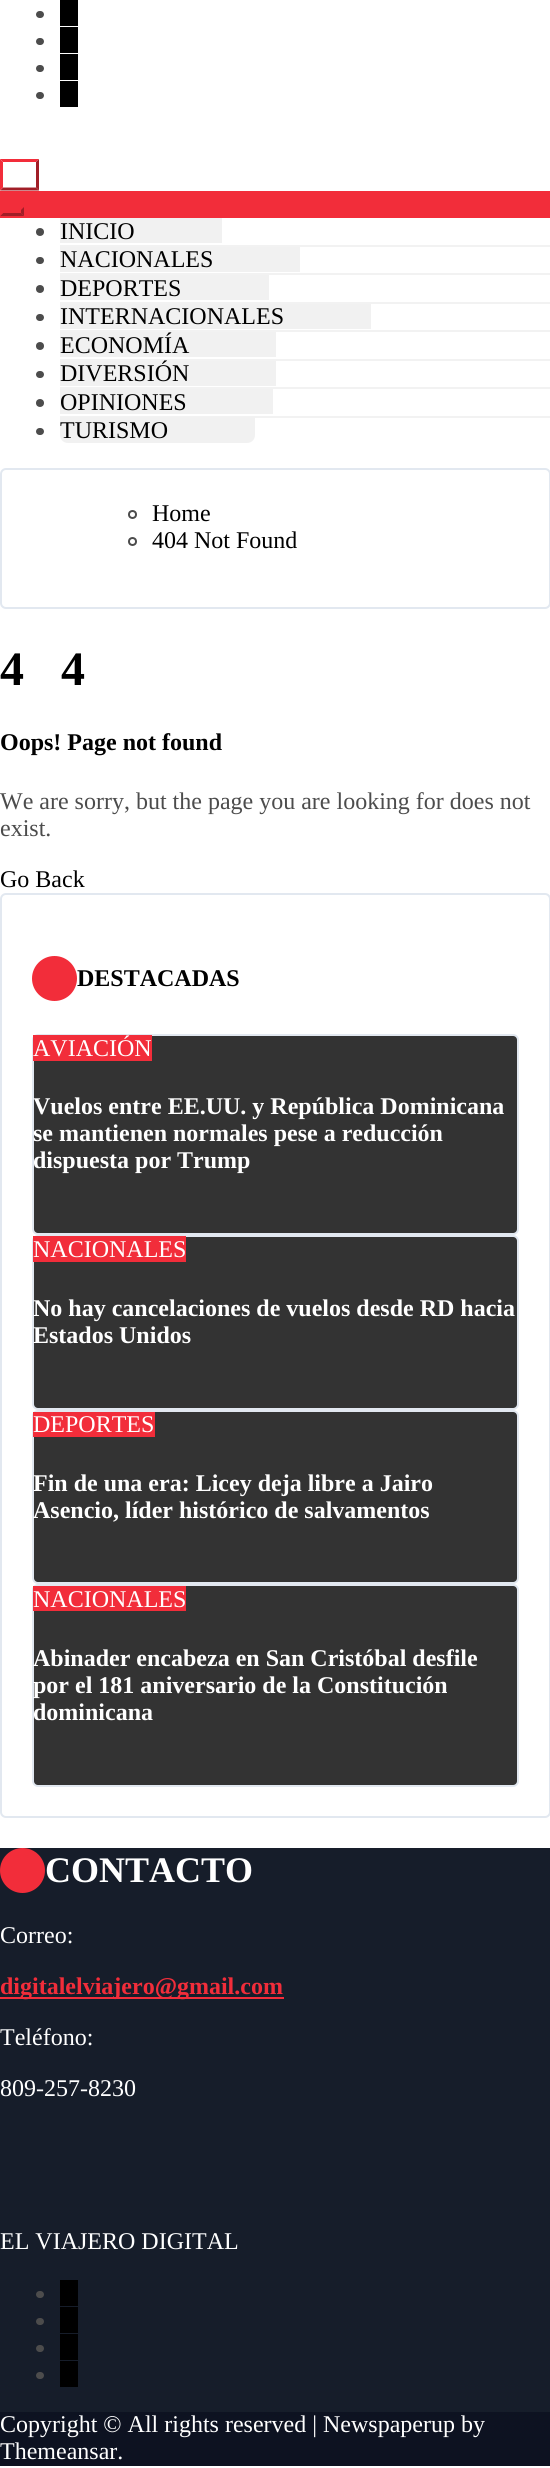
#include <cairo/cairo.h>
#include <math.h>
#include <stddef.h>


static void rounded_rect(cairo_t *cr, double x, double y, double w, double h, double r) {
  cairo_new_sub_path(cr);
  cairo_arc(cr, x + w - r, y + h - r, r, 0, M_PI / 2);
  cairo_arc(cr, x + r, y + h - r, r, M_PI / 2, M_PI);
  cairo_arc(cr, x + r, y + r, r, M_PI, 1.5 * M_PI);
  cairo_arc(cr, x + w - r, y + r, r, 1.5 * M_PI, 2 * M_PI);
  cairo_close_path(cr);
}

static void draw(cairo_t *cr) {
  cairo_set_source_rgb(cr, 1, 1, 1);
  cairo_paint(cr);
  cairo_set_source_rgb(cr, 76 / 255.0, 76 / 255.0, 76 / 255.0);
  rounded_rect(cr, 36, 11, 8, 7, 3.5);
  cairo_fill(cr);
  cairo_set_source_rgb(cr, 0, 0, 0);
  cairo_rectangle(cr, 60, 0, 18, 26);
  cairo_fill(cr);
  cairo_set_source_rgb(cr, 76 / 255.0, 76 / 255.0, 76 / 255.0);
  rounded_rect(cr, 36, 38, 8, 7, 3.5);
  cairo_fill(cr);
  cairo_set_source_rgb(cr, 0, 0, 0);
  cairo_rectangle(cr, 60, 27, 18, 26);
  cairo_fill(cr);
  cairo_set_source_rgb(cr, 76 / 255.0, 76 / 255.0, 76 / 255.0);
  rounded_rect(cr, 36, 65, 8, 7, 3.5);
  cairo_fill(cr);
  cairo_set_source_rgb(cr, 0, 0, 0);
  cairo_rectangle(cr, 60, 54, 18, 26);
  cairo_fill(cr);
  cairo_set_source_rgb(cr, 76 / 255.0, 76 / 255.0, 76 / 255.0);
  rounded_rect(cr, 36, 92, 8, 7, 3.5);
  cairo_fill(cr);
  cairo_set_source_rgb(cr, 0, 0, 0);
  cairo_rectangle(cr, 60, 81, 18, 26);
  cairo_fill(cr);
  cairo_set_source_rgb(cr, 242 / 255.0, 45 / 255.0, 58 / 255.0);
  cairo_new_path(cr);
  cairo_move_to(cr, 0, 159);
  cairo_line_to(cr, 39, 159);
  cairo_line_to(cr, 36, 162);
  cairo_line_to(cr, 3, 162);
  cairo_close_path(cr);
  cairo_fill(cr);
  cairo_set_source_rgb(cr, 161 / 255.0, 30 / 255.0, 39 / 255.0);
  cairo_new_path(cr);
  cairo_move_to(cr, 39, 159);
  cairo_line_to(cr, 39, 190.5);
  cairo_line_to(cr, 36, 187.5);
  cairo_line_to(cr, 36, 162);
  cairo_close_path(cr);
  cairo_fill(cr);
  cairo_new_path(cr);
  cairo_move_to(cr, 39, 190.5);
  cairo_line_to(cr, 0, 190.5);
  cairo_line_to(cr, 3, 187.5);
  cairo_line_to(cr, 36, 187.5);
  cairo_close_path(cr);
  cairo_fill(cr);
  cairo_set_source_rgb(cr, 242 / 255.0, 45 / 255.0, 58 / 255.0);
  cairo_new_path(cr);
  cairo_move_to(cr, 0, 190.5);
  cairo_line_to(cr, 0, 159);
  cairo_line_to(cr, 3, 162);
  cairo_line_to(cr, 3, 187.5);
  cairo_close_path(cr);
  cairo_fill(cr);
  cairo_rectangle(cr, 0, 191, 550, 27);
  cairo_fill(cr);
  cairo_set_source_rgb(cr, 161 / 255.0, 30 / 255.0, 39 / 255.0);
  cairo_new_path(cr);
  cairo_move_to(cr, 24, 207);
  cairo_line_to(cr, 24, 216);
  cairo_line_to(cr, 21, 213);
  cairo_line_to(cr, 21, 210);
  cairo_close_path(cr);
  cairo_fill(cr);
  cairo_new_path(cr);
  cairo_move_to(cr, 24, 216);
  cairo_line_to(cr, 0, 216);
  cairo_line_to(cr, 3, 213);
  cairo_line_to(cr, 21, 213);
  cairo_close_path(cr);
  cairo_fill(cr);
  cairo_set_source_rgb(cr, 242 / 255.0, 45 / 255.0, 58 / 255.0);
  cairo_new_path(cr);
  cairo_move_to(cr, 0, 216);
  cairo_line_to(cr, 0, 207);
  cairo_line_to(cr, 3, 210);
  cairo_line_to(cr, 3, 213);
  cairo_close_path(cr);
  cairo_fill(cr);
  cairo_set_source_rgb(cr, 76 / 255.0, 76 / 255.0, 76 / 255.0);
  cairo_arc(cr, 40, 232, 4, 0, 2 * M_PI);
  cairo_fill(cr);
  cairo_set_source_rgb(cr, 241 / 255.0, 241 / 255.0, 241 / 255.0);
  cairo_rectangle(cr, 60, 218, 162, 25);
  cairo_fill(cr);
  cairo_set_source_rgb(cr, 242 / 255.0, 242 / 255.0, 242 / 255.0);
  cairo_rectangle(cr, 60, 245, 490, 2);
  cairo_fill(cr);
  cairo_set_source_rgb(cr, 76 / 255.0, 76 / 255.0, 76 / 255.0);
  rounded_rect(cr, 36, 257, 8, 7, 3.5);
  cairo_fill(cr);
  cairo_set_source_rgb(cr, 241 / 255.0, 241 / 255.0, 241 / 255.0);
  cairo_rectangle(cr, 60, 247, 240, 25);
  cairo_fill(cr);
  cairo_set_source_rgb(cr, 242 / 255.0, 242 / 255.0, 242 / 255.0);
  cairo_rectangle(cr, 60, 273, 490, 2);
  cairo_fill(cr);
  cairo_set_source_rgb(cr, 76 / 255.0, 76 / 255.0, 76 / 255.0);
  cairo_arc(cr, 40, 289, 4, 0, 2 * M_PI);
  cairo_fill(cr);
  cairo_set_source_rgb(cr, 241 / 255.0, 241 / 255.0, 241 / 255.0);
  cairo_rectangle(cr, 60, 275, 209, 25);
  cairo_fill(cr);
  cairo_set_source_rgb(cr, 242 / 255.0, 242 / 255.0, 242 / 255.0);
  cairo_rectangle(cr, 60, 302, 490, 2);
  cairo_fill(cr);
  cairo_set_source_rgb(cr, 76 / 255.0, 76 / 255.0, 76 / 255.0);
  rounded_rect(cr, 36, 314, 8, 7, 3.5);
  cairo_fill(cr);
  cairo_set_source_rgb(cr, 241 / 255.0, 241 / 255.0, 241 / 255.0);
  cairo_rectangle(cr, 60, 304, 311, 25);
  cairo_fill(cr);
  cairo_set_source_rgb(cr, 242 / 255.0, 242 / 255.0, 242 / 255.0);
  cairo_rectangle(cr, 60, 330, 490, 2);
  cairo_fill(cr);
  cairo_set_source_rgb(cr, 76 / 255.0, 76 / 255.0, 76 / 255.0);
  cairo_arc(cr, 40, 346, 4, 0, 2 * M_PI);
  cairo_fill(cr);
  cairo_set_source_rgb(cr, 241 / 255.0, 241 / 255.0, 241 / 255.0);
  cairo_rectangle(cr, 60, 332, 216, 25);
  cairo_fill(cr);
  cairo_set_source_rgb(cr, 242 / 255.0, 242 / 255.0, 242 / 255.0);
  cairo_rectangle(cr, 60, 359, 490, 2);
  cairo_fill(cr);
  cairo_set_source_rgb(cr, 76 / 255.0, 76 / 255.0, 76 / 255.0);
  rounded_rect(cr, 36, 371, 8, 7, 3.5);
  cairo_fill(cr);
  cairo_set_source_rgb(cr, 241 / 255.0, 241 / 255.0, 241 / 255.0);
  cairo_rectangle(cr, 60, 361, 216, 25);
  cairo_fill(cr);
  cairo_set_source_rgb(cr, 242 / 255.0, 242 / 255.0, 242 / 255.0);
  cairo_rectangle(cr, 60, 387, 490, 2);
  cairo_fill(cr);
  cairo_set_source_rgb(cr, 76 / 255.0, 76 / 255.0, 76 / 255.0);
  cairo_arc(cr, 40, 403, 4, 0, 2 * M_PI);
  cairo_fill(cr);
  cairo_set_source_rgb(cr, 241 / 255.0, 241 / 255.0, 241 / 255.0);
  cairo_rectangle(cr, 60, 389, 213, 25);
  cairo_fill(cr);
  cairo_set_source_rgb(cr, 242 / 255.0, 242 / 255.0, 242 / 255.0);
  cairo_rectangle(cr, 60, 416, 490, 2);
  cairo_fill(cr);
  cairo_set_source_rgb(cr, 76 / 255.0, 76 / 255.0, 76 / 255.0);
  rounded_rect(cr, 36, 428, 8, 7, 3.5);
  cairo_fill(cr);
  cairo_set_source_rgb(cr, 241 / 255.0, 241 / 255.0, 241 / 255.0);
  cairo_new_path(cr);
  cairo_move_to(cr, 60, 417);
  cairo_line_to(cr, 255, 417);
  cairo_line_to(cr, 255, 435);
  cairo_curve_to(cr, 255, 439.5, 251.5, 443, 247, 443);
  cairo_line_to(cr, 68, 443);
  cairo_curve_to(cr, 63.5, 443, 60, 439.5, 60, 435);
  cairo_close_path(cr);
  cairo_fill(cr);
  rounded_rect(cr, 1, 469, 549, 139, 5);
  cairo_set_source_rgb(cr, 226 / 255.0, 232 / 255.0, 240 / 255.0);
  cairo_stroke(cr);
  cairo_arc(cr, 132.5, 514.5, 3.5, 0, 2 * M_PI);
  cairo_set_source_rgb(cr, 76 / 255.0, 76 / 255.0, 76 / 255.0);
  cairo_stroke(cr);
  cairo_arc(cr, 132.5, 541.5, 3.5, 0, 2 * M_PI);
  cairo_stroke(cr);
  rounded_rect(cr, 1, 894, 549, 923, 5);
  cairo_set_source_rgb(cr, 226 / 255.0, 232 / 255.0, 240 / 255.0);
  cairo_stroke(cr);
  cairo_set_source_rgb(cr, 242 / 255.0, 45 / 255.0, 58 / 255.0);
  cairo_arc(cr, 54.5, 978.5, 22.5, 0, 2 * M_PI);
  cairo_fill(cr);
  cairo_set_source_rgb(cr, 51 / 255.0, 51 / 255.0, 51 / 255.0);
  rounded_rect(cr, 33, 1035, 485, 199, 5);
  cairo_fill_preserve(cr);
  cairo_set_source_rgb(cr, 226 / 255.0, 232 / 255.0, 240 / 255.0);
  cairo_stroke(cr);
  cairo_set_source_rgb(cr, 242 / 255.0, 45 / 255.0, 58 / 255.0);
  cairo_rectangle(cr, 33, 1035, 119, 26);
  cairo_fill(cr);
  cairo_set_source_rgb(cr, 51 / 255.0, 51 / 255.0, 51 / 255.0);
  rounded_rect(cr, 33, 1236, 485, 173, 5);
  cairo_fill_preserve(cr);
  cairo_set_source_rgb(cr, 226 / 255.0, 232 / 255.0, 240 / 255.0);
  cairo_stroke(cr);
  cairo_set_source_rgb(cr, 242 / 255.0, 45 / 255.0, 58 / 255.0);
  cairo_rectangle(cr, 33, 1236, 153, 26);
  cairo_fill(cr);
  cairo_set_source_rgb(cr, 51 / 255.0, 51 / 255.0, 51 / 255.0);
  rounded_rect(cr, 33, 1411, 485, 172, 5);
  cairo_fill_preserve(cr);
  cairo_set_source_rgb(cr, 226 / 255.0, 232 / 255.0, 240 / 255.0);
  cairo_stroke(cr);
  cairo_set_source_rgb(cr, 242 / 255.0, 45 / 255.0, 58 / 255.0);
  cairo_rectangle(cr, 33, 1412, 122, 25);
  cairo_fill(cr);
  cairo_set_source_rgb(cr, 51 / 255.0, 51 / 255.0, 51 / 255.0);
  rounded_rect(cr, 33, 1585, 485, 201, 5);
  cairo_fill_preserve(cr);
  cairo_set_source_rgb(cr, 226 / 255.0, 232 / 255.0, 240 / 255.0);
  cairo_stroke(cr);
  cairo_set_source_rgb(cr, 242 / 255.0, 45 / 255.0, 58 / 255.0);
  cairo_rectangle(cr, 33, 1586, 153, 25);
  cairo_fill(cr);
  cairo_set_source_rgb(cr, 22 / 255.0, 29 / 255.0, 42 / 255.0);
  cairo_rectangle(cr, 0, 1848, 550, 564);
  cairo_fill(cr);
  cairo_set_source_rgb(cr, 242 / 255.0, 45 / 255.0, 58 / 255.0);
  cairo_arc(cr, 22.5, 1870.5, 22.5, 0, 2 * M_PI);
  cairo_fill(cr);
  cairo_rectangle(cr, 0, 1997, 284, 2);
  cairo_fill(cr);
  cairo_set_source_rgb(cr, 76 / 255.0, 76 / 255.0, 76 / 255.0);
  rounded_rect(cr, 36, 2291, 8, 7, 3.5);
  cairo_fill(cr);
  cairo_set_source_rgb(cr, 0, 0, 0);
  cairo_rectangle(cr, 60, 2280, 18, 26);
  cairo_fill(cr);
  cairo_set_source_rgb(cr, 76 / 255.0, 76 / 255.0, 76 / 255.0);
  rounded_rect(cr, 36, 2318, 8, 7, 3.5);
  cairo_fill(cr);
  cairo_set_source_rgb(cr, 0, 0, 0);
  cairo_rectangle(cr, 60, 2307, 18, 26);
  cairo_fill(cr);
  cairo_set_source_rgb(cr, 76 / 255.0, 76 / 255.0, 76 / 255.0);
  rounded_rect(cr, 36, 2345, 8, 7, 3.5);
  cairo_fill(cr);
  cairo_set_source_rgb(cr, 0, 0, 0);
  cairo_rectangle(cr, 60, 2334, 18, 26);
  cairo_fill(cr);
  cairo_set_source_rgb(cr, 76 / 255.0, 76 / 255.0, 76 / 255.0);
  rounded_rect(cr, 36, 2372, 8, 7, 3.5);
  cairo_fill(cr);
  cairo_set_source_rgb(cr, 0, 0, 0);
  cairo_rectangle(cr, 60, 2361, 18, 26);
  cairo_fill(cr);
  cairo_set_source_rgb(cr, 13 / 255.0, 18 / 255.0, 33 / 255.0);
  cairo_rectangle(cr, 0, 2412, 550, 54);
  cairo_fill(cr);
  cairo_select_font_face(cr, "Liberation Serif", CAIRO_FONT_SLANT_NORMAL, CAIRO_FONT_WEIGHT_NORMAL);
  cairo_set_font_size(cr, 24);
  cairo_set_source_rgb(cr, 0, 0, 0);
  cairo_move_to(cr, 60, 239);
  cairo_show_text(cr, "INICIO");
  cairo_move_to(cr, 60, 267);
  cairo_show_text(cr, "NACIONALES");
  cairo_move_to(cr, 60, 296);
  cairo_show_text(cr, "DEPORTES");
  cairo_move_to(cr, 60, 324);
  cairo_show_text(cr, "INTERNACIONALES");
  cairo_move_to(cr, 60, 353);
  cairo_show_text(cr, "ECONOMÍA");
  cairo_move_to(cr, 60, 381);
  cairo_show_text(cr, "DIVERSIÓN");
  cairo_move_to(cr, 60, 410);
  cairo_show_text(cr, "OPINIONES");
  cairo_move_to(cr, 60, 438);
  cairo_show_text(cr, "TURISMO");
  cairo_move_to(cr, 152, 521);
  cairo_show_text(cr, "Home");
  cairo_move_to(cr, 152, 548);
  cairo_show_text(cr, "404 Not Found");
  cairo_select_font_face(cr, "Liberation Serif", CAIRO_FONT_SLANT_NORMAL, CAIRO_FONT_WEIGHT_BOLD);
  cairo_set_font_size(cr, 48);
  cairo_move_to(cr, 0, 685);
  cairo_show_text(cr, "4");
  cairo_move_to(cr, 61, 685);
  cairo_show_text(cr, "4");
  cairo_set_font_size(cr, 24);
  cairo_move_to(cr, 0, 750);
  cairo_show_text(cr, "Oops! Page not found");
  cairo_select_font_face(cr, "Liberation Serif", CAIRO_FONT_SLANT_NORMAL, CAIRO_FONT_WEIGHT_NORMAL);
  cairo_set_source_rgb(cr, 76 / 255.0, 76 / 255.0, 76 / 255.0);
  cairo_move_to(cr, 0, 809);
  cairo_show_text(cr, "We are sorry, but the page you are looking for does not");
  cairo_move_to(cr, 0, 836);
  cairo_show_text(cr, "exist.");
  cairo_set_source_rgb(cr, 0, 0, 0);
  cairo_move_to(cr, 0, 887);
  cairo_show_text(cr, "Go Back");
  cairo_select_font_face(cr, "Liberation Serif", CAIRO_FONT_SLANT_NORMAL, CAIRO_FONT_WEIGHT_BOLD);
  cairo_move_to(cr, 77, 986);
  cairo_show_text(cr, "DESTACADAS");
  cairo_select_font_face(cr, "Liberation Serif", CAIRO_FONT_SLANT_NORMAL, CAIRO_FONT_WEIGHT_NORMAL);
  cairo_set_source_rgb(cr, 1, 1, 1);
  cairo_move_to(cr, 33, 1056);
  cairo_show_text(cr, "AVIACIÓN");
  cairo_select_font_face(cr, "Liberation Serif", CAIRO_FONT_SLANT_NORMAL, CAIRO_FONT_WEIGHT_BOLD);
  cairo_move_to(cr, 33, 1114);
  cairo_show_text(cr, "Vuelos entre EE.UU. y República Dominicana");
  cairo_move_to(cr, 33, 1141);
  cairo_show_text(cr, "se mantienen normales pese a reducción");
  cairo_move_to(cr, 33, 1168);
  cairo_show_text(cr, "dispuesta por Trump");
  cairo_select_font_face(cr, "Liberation Serif", CAIRO_FONT_SLANT_NORMAL, CAIRO_FONT_WEIGHT_NORMAL);
  cairo_move_to(cr, 33, 1257);
  cairo_show_text(cr, "NACIONALES");
  cairo_select_font_face(cr, "Liberation Serif", CAIRO_FONT_SLANT_NORMAL, CAIRO_FONT_WEIGHT_BOLD);
  cairo_move_to(cr, 33, 1316);
  cairo_show_text(cr, "No hay cancelaciones de vuelos desde RD hacia");
  cairo_move_to(cr, 33, 1343);
  cairo_show_text(cr, "Estados Unidos");
  cairo_select_font_face(cr, "Liberation Serif", CAIRO_FONT_SLANT_NORMAL, CAIRO_FONT_WEIGHT_NORMAL);
  cairo_move_to(cr, 33, 1432);
  cairo_show_text(cr, "DEPORTES");
  cairo_select_font_face(cr, "Liberation Serif", CAIRO_FONT_SLANT_NORMAL, CAIRO_FONT_WEIGHT_BOLD);
  cairo_move_to(cr, 33, 1491);
  cairo_show_text(cr, "Fin de una era: Licey deja libre a Jairo");
  cairo_move_to(cr, 33, 1518);
  cairo_show_text(cr, "Asencio, líder histórico de salvamentos");
  cairo_select_font_face(cr, "Liberation Serif", CAIRO_FONT_SLANT_NORMAL, CAIRO_FONT_WEIGHT_NORMAL);
  cairo_move_to(cr, 33, 1607);
  cairo_show_text(cr, "NACIONALES");
  cairo_select_font_face(cr, "Liberation Serif", CAIRO_FONT_SLANT_NORMAL, CAIRO_FONT_WEIGHT_BOLD);
  cairo_move_to(cr, 33, 1666);
  cairo_show_text(cr, "Abinader encabeza en San Cristóbal desfile");
  cairo_move_to(cr, 33, 1693);
  cairo_show_text(cr, "por el 181 aniversario de la Constitución");
  cairo_move_to(cr, 33, 1720);
  cairo_show_text(cr, "dominicana");
  cairo_set_font_size(cr, 36);
  cairo_move_to(cr, 45, 1882);
  cairo_show_text(cr, "CONTACTO");
  cairo_select_font_face(cr, "Liberation Serif", CAIRO_FONT_SLANT_NORMAL, CAIRO_FONT_WEIGHT_NORMAL);
  cairo_set_font_size(cr, 24);
  cairo_move_to(cr, 0, 1943);
  cairo_show_text(cr, "Correo:");
  cairo_select_font_face(cr, "Liberation Serif", CAIRO_FONT_SLANT_NORMAL, CAIRO_FONT_WEIGHT_BOLD);
  cairo_set_source_rgb(cr, 242 / 255.0, 45 / 255.0, 58 / 255.0);
  cairo_move_to(cr, 0, 1994);
  cairo_show_text(cr, "digitalelviajero@gmail.com");
  cairo_select_font_face(cr, "Liberation Serif", CAIRO_FONT_SLANT_NORMAL, CAIRO_FONT_WEIGHT_NORMAL);
  cairo_set_source_rgb(cr, 1, 1, 1);
  cairo_move_to(cr, 0, 2045);
  cairo_show_text(cr, "Teléfono:");
  cairo_move_to(cr, 0, 2096);
  cairo_show_text(cr, "809-257-8230");
  cairo_move_to(cr, 0, 2249);
  cairo_show_text(cr, "EL VIAJERO DIGITAL");
  cairo_move_to(cr, 0, 2432);
  cairo_show_text(cr, "Copyright © All rights reserved | Newspaperup by");
  cairo_move_to(cr, 0, 2459);
  cairo_show_text(cr, "Themeansar.");
}

int main(void) {
  cairo_surface_t *surface = cairo_image_surface_create(CAIRO_FORMAT_RGB24, 550, 2468);
  cairo_t *cr = cairo_create(surface);
  cairo_font_options_t *options = cairo_font_options_create();
  cairo_font_options_set_hint_metrics(options, CAIRO_HINT_METRICS_OFF);
  cairo_font_options_set_hint_style(options, CAIRO_HINT_STYLE_NONE);
  cairo_set_font_options(cr, options);
  cairo_set_miter_limit(cr, 4);
  draw(cr);
  cairo_surface_write_to_png(surface, "out.png");
  cairo_font_options_destroy(options);
  cairo_destroy(cr);
  cairo_surface_destroy(surface);
  return 0;
}
